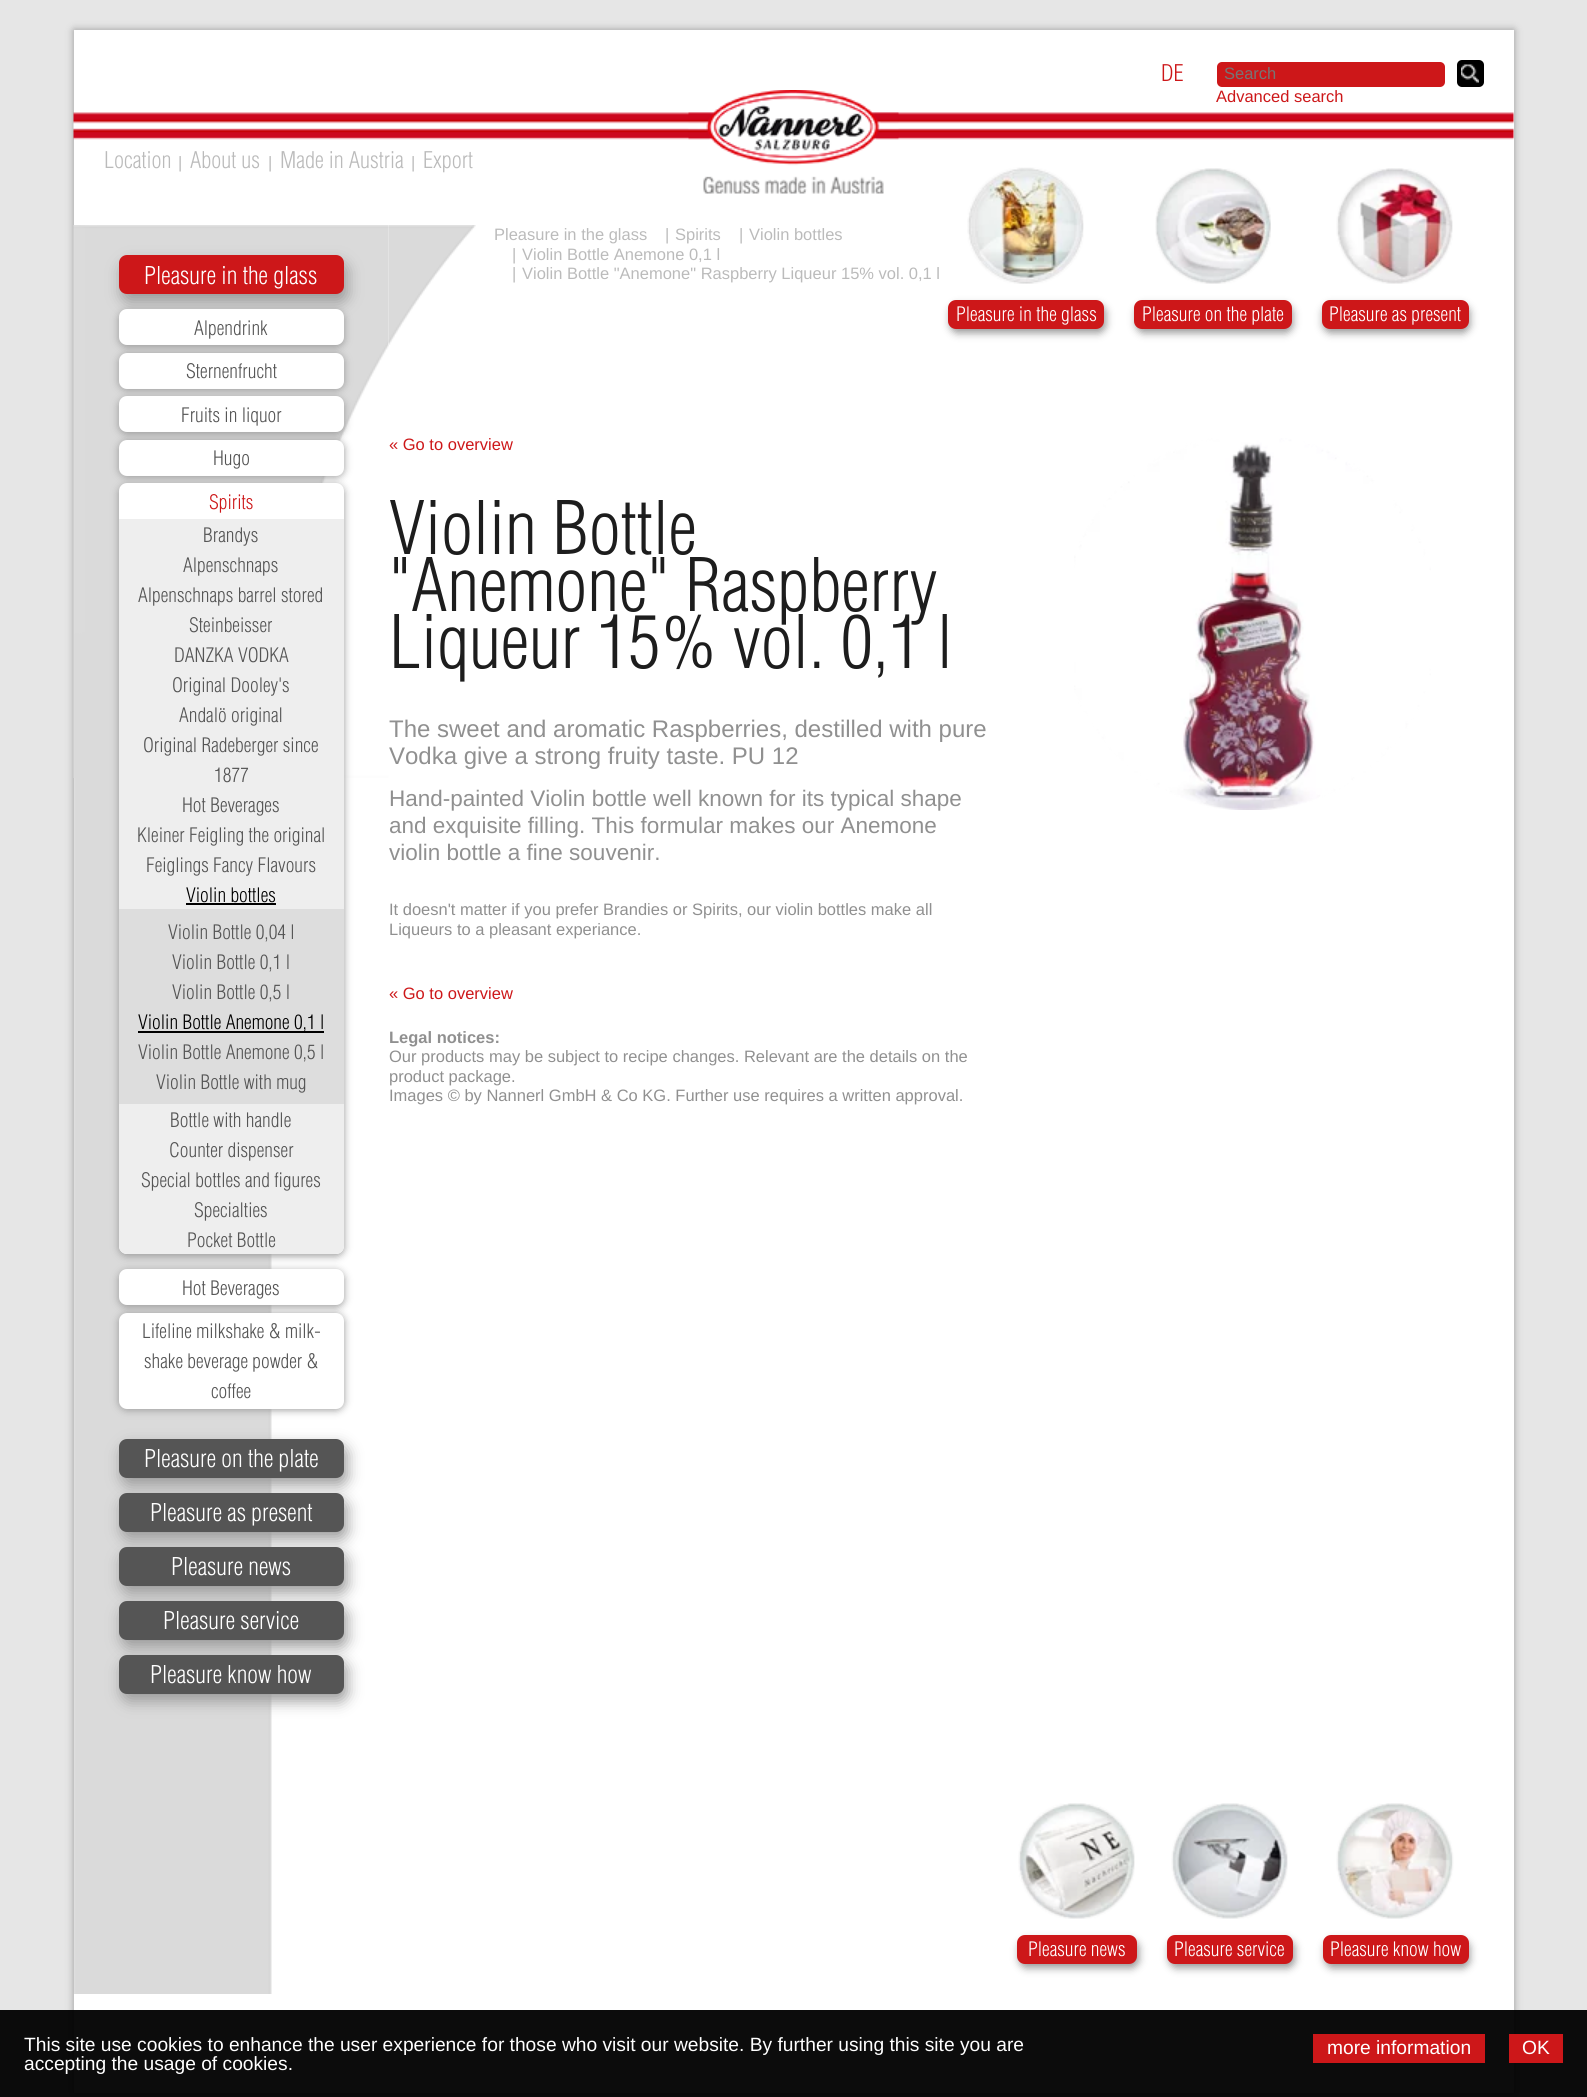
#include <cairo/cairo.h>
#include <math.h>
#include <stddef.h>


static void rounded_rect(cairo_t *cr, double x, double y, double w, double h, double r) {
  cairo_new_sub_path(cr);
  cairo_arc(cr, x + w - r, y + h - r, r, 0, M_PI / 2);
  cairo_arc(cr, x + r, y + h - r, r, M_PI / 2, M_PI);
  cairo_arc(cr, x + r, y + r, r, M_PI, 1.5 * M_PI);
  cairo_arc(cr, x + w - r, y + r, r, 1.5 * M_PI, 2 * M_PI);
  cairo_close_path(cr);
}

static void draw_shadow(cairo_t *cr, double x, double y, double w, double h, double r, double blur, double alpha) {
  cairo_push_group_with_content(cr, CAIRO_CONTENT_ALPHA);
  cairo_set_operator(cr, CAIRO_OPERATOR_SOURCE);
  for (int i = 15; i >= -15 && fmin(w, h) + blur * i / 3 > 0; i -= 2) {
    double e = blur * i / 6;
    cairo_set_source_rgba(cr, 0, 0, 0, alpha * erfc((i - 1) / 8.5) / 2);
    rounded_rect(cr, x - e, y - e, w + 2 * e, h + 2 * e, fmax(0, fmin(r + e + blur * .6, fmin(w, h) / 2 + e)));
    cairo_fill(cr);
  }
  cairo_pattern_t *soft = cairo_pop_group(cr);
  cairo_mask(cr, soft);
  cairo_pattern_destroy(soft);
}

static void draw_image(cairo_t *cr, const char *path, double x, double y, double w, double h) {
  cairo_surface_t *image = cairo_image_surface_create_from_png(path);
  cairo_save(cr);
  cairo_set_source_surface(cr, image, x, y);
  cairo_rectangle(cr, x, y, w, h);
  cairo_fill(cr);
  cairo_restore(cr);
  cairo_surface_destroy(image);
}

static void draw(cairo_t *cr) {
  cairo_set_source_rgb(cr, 230 / 255.0, 230 / 255.0, 230 / 255.0);
  cairo_paint(cr);
  cairo_set_source_rgb(cr, 153 / 255.0, 153 / 255.0, 153 / 255.0);
  draw_shadow(cr, 74, 30, 1440, 2063, 0, 4, 1);
  cairo_set_source_rgb(cr, 1, 1, 1);
  cairo_rectangle(cr, 74, 30, 1440, 2063);
  cairo_fill(cr);
  draw_image(cr, "images/1.png", 74, 225, 198, 1769);
  draw_image(cr, "images/2.png", 73, 112, 1441, 28);
  cairo_set_source_rgb(cr, 205 / 255.0, 23 / 255.0, 25 / 255.0);
  rounded_rect(cr, 1217, 62, 228, 25, 5);
  cairo_fill(cr);
  cairo_set_source_rgb(cr, 0, 0, 0);
  rounded_rect(cr, 1457, 60, 27, 27, 5);
  cairo_fill(cr);
  draw_image(cr, "images/3.png", 1461, 64, 18, 19);
  draw_image(cr, "images/4.png", 688, 90, 211, 104);
  draw_image(cr, "images/5.png", 73, 225, 316, 553);
  cairo_set_source_rgb(cr, 153 / 255.0, 153 / 255.0, 153 / 255.0);
  draw_shadow(cr, 122, 263, 225, 39, 8, 7.5, 1);
  cairo_set_source_rgb(cr, 205 / 255.0, 23 / 255.0, 25 / 255.0);
  rounded_rect(cr, 119, 255, 225, 39, 8);
  cairo_fill(cr);
  cairo_set_source_rgb(cr, 153 / 255.0, 153 / 255.0, 153 / 255.0);
  draw_shadow(cr, 119, 311, 225, 36, 8, 4, 1);
  cairo_set_source_rgb(cr, 1, 1, 1);
  rounded_rect(cr, 119, 309, 225, 36, 8);
  cairo_fill(cr);
  cairo_set_source_rgb(cr, 153 / 255.0, 153 / 255.0, 153 / 255.0);
  draw_shadow(cr, 119, 354, 225, 36, 8, 4, 1);
  cairo_set_source_rgb(cr, 1, 1, 1);
  rounded_rect(cr, 119, 353, 225, 36, 8);
  cairo_fill(cr);
  cairo_set_source_rgb(cr, 153 / 255.0, 153 / 255.0, 153 / 255.0);
  draw_shadow(cr, 119, 398, 225, 36, 8, 4, 1);
  cairo_set_source_rgb(cr, 1, 1, 1);
  rounded_rect(cr, 119, 396, 225, 36, 8);
  cairo_fill(cr);
  cairo_set_source_rgb(cr, 153 / 255.0, 153 / 255.0, 153 / 255.0);
  draw_shadow(cr, 119, 441, 225, 36, 8, 4, 1);
  cairo_set_source_rgb(cr, 1, 1, 1);
  rounded_rect(cr, 119, 440, 225, 36, 8);
  cairo_fill(cr);
  cairo_set_source_rgb(cr, 153 / 255.0, 153 / 255.0, 153 / 255.0);
  draw_shadow(cr, 119, 485, 225, 771, 8, 4, 1);
  cairo_set_source_rgb(cr, 1, 1, 1);
  rounded_rect(cr, 119, 483, 225, 771, 8);
  cairo_fill(cr);
  cairo_set_source_rgb(cr, 238 / 255.0, 238 / 255.0, 238 / 255.0);
  cairo_new_path(cr);
  cairo_move_to(cr, 119, 519);
  cairo_line_to(cr, 344, 519);
  cairo_line_to(cr, 344, 1246);
  cairo_curve_to(cr, 344, 1250.5, 340.5, 1254, 336, 1254);
  cairo_line_to(cr, 127, 1254);
  cairo_curve_to(cr, 122.5, 1254, 119, 1250.5, 119, 1246);
  cairo_close_path(cr);
  cairo_fill(cr);
  cairo_set_source_rgb(cr, 0, 0, 0);
  cairo_rectangle(cr, 186, 903, 90, 2);
  cairo_fill(cr);
  cairo_set_source_rgb(cr, 221 / 255.0, 221 / 255.0, 221 / 255.0);
  cairo_rectangle(cr, 119, 909, 225, 195);
  cairo_fill(cr);
  cairo_set_source_rgb(cr, 0, 0, 0);
  cairo_rectangle(cr, 138, 1031, 186, 2);
  cairo_fill(cr);
  cairo_set_source_rgb(cr, 153 / 255.0, 153 / 255.0, 153 / 255.0);
  draw_shadow(cr, 119, 1271, 225, 36, 8, 4, 1);
  cairo_set_source_rgb(cr, 1, 1, 1);
  rounded_rect(cr, 119, 1269, 225, 36, 8);
  cairo_fill(cr);
  cairo_set_source_rgb(cr, 153 / 255.0, 153 / 255.0, 153 / 255.0);
  draw_shadow(cr, 119, 1314, 225, 96, 8, 4, 1);
  cairo_set_source_rgb(cr, 1, 1, 1);
  rounded_rect(cr, 119, 1313, 225, 96, 8);
  cairo_fill(cr);
  cairo_set_source_rgb(cr, 153 / 255.0, 153 / 255.0, 153 / 255.0);
  draw_shadow(cr, 122, 1446, 225, 39, 8, 7.5, 1);
  cairo_set_source_rgb(cr, 85 / 255.0, 85 / 255.0, 85 / 255.0);
  rounded_rect(cr, 119, 1439, 225, 39, 8);
  cairo_fill(cr);
  cairo_set_source_rgb(cr, 153 / 255.0, 153 / 255.0, 153 / 255.0);
  draw_shadow(cr, 122, 1500, 225, 39, 8, 7.5, 1);
  cairo_set_source_rgb(cr, 85 / 255.0, 85 / 255.0, 85 / 255.0);
  rounded_rect(cr, 119, 1493, 225, 39, 8);
  cairo_fill(cr);
  cairo_set_source_rgb(cr, 153 / 255.0, 153 / 255.0, 153 / 255.0);
  draw_shadow(cr, 122, 1554, 225, 39, 8, 7.5, 1);
  cairo_set_source_rgb(cr, 85 / 255.0, 85 / 255.0, 85 / 255.0);
  rounded_rect(cr, 119, 1547, 225, 39, 8);
  cairo_fill(cr);
  cairo_set_source_rgb(cr, 153 / 255.0, 153 / 255.0, 153 / 255.0);
  draw_shadow(cr, 122, 1608, 225, 39, 8, 7.5, 1);
  cairo_set_source_rgb(cr, 85 / 255.0, 85 / 255.0, 85 / 255.0);
  rounded_rect(cr, 119, 1601, 225, 39, 8);
  cairo_fill(cr);
  cairo_set_source_rgb(cr, 153 / 255.0, 153 / 255.0, 153 / 255.0);
  draw_shadow(cr, 122, 1662, 225, 39, 8, 7.5, 1);
  cairo_set_source_rgb(cr, 85 / 255.0, 85 / 255.0, 85 / 255.0);
  rounded_rect(cr, 119, 1655, 225, 39, 8);
  cairo_fill(cr);
  draw_image(cr, "images/6.png", 388, 225, 88, 120);
  draw_image(cr, "images/7.png", 1074, 438, 357, 372);
  draw_image(cr, "images/8.png", 967, 167, 117, 117);
  cairo_set_source_rgb(cr, 153 / 255.0, 153 / 255.0, 153 / 255.0);
  draw_shadow(cr, 950, 305, 156, 28, 8, 4, 1);
  cairo_set_source_rgb(cr, 205 / 255.0, 23 / 255.0, 25 / 255.0);
  rounded_rect(cr, 948, 300, 156, 29, 8);
  cairo_fill(cr);
  draw_image(cr, "images/9.png", 1155, 168, 116, 116);
  cairo_set_source_rgb(cr, 153 / 255.0, 153 / 255.0, 153 / 255.0);
  draw_shadow(cr, 1136, 305, 157, 28, 8, 4, 1);
  cairo_set_source_rgb(cr, 205 / 255.0, 23 / 255.0, 25 / 255.0);
  rounded_rect(cr, 1134, 300, 158, 29, 8);
  cairo_fill(cr);
  draw_image(cr, "images/10.png", 1336, 168, 117, 116);
  cairo_set_source_rgb(cr, 153 / 255.0, 153 / 255.0, 153 / 255.0);
  draw_shadow(cr, 1323, 305, 147, 28, 8, 4, 1);
  cairo_set_source_rgb(cr, 205 / 255.0, 23 / 255.0, 25 / 255.0);
  rounded_rect(cr, 1322, 300, 147, 29, 8);
  cairo_fill(cr);
  draw_image(cr, "images/11.png", 1018, 1803, 117, 116);
  cairo_set_source_rgb(cr, 153 / 255.0, 153 / 255.0, 153 / 255.0);
  draw_shadow(cr, 1019, 1940, 120, 28, 8, 4, 1);
  cairo_set_source_rgb(cr, 205 / 255.0, 23 / 255.0, 25 / 255.0);
  rounded_rect(cr, 1017, 1935, 120, 29, 8);
  cairo_fill(cr);
  draw_image(cr, "images/12.png", 1171, 1803, 117, 116);
  cairo_set_source_rgb(cr, 153 / 255.0, 153 / 255.0, 153 / 255.0);
  draw_shadow(cr, 1169, 1940, 126, 28, 8, 4, 1);
  cairo_set_source_rgb(cr, 205 / 255.0, 23 / 255.0, 25 / 255.0);
  rounded_rect(cr, 1167, 1935, 126, 29, 8);
  cairo_fill(cr);
  draw_image(cr, "images/13.png", 1336, 1803, 118, 116);
  cairo_set_source_rgb(cr, 153 / 255.0, 153 / 255.0, 153 / 255.0);
  draw_shadow(cr, 1325, 1940, 145, 28, 8, 4, 1);
  cairo_set_source_rgb(cr, 205 / 255.0, 23 / 255.0, 25 / 255.0);
  rounded_rect(cr, 1323, 1935, 146, 29, 8);
  cairo_fill(cr);
  cairo_set_source_rgba(cr, 0, 0, 0, 0.95);
  cairo_rectangle(cr, 0, 2010, 1587, 87);
  cairo_fill(cr);
  cairo_set_source_rgb(cr, 205 / 255.0, 23 / 255.0, 25 / 255.0);
  cairo_rectangle(cr, 1313, 2034, 172, 29);
  cairo_fill(cr);
  cairo_rectangle(cr, 1509, 2034, 54, 29);
  cairo_fill(cr);
  cairo_select_font_face(cr, "Helvetica Light", CAIRO_FONT_SLANT_NORMAL, CAIRO_FONT_WEIGHT_NORMAL);
  cairo_set_font_size(cr, 22.5);
  cairo_move_to(cr, 1161, 81);
  cairo_show_text(cr, "DE");
  cairo_select_font_face(cr, "Liberation Sans", CAIRO_FONT_SLANT_NORMAL, CAIRO_FONT_WEIGHT_NORMAL);
  cairo_set_font_size(cr, 16.5);
  cairo_set_source_rgb(cr, 117 / 255.0, 117 / 255.0, 117 / 255.0);
  cairo_move_to(cr, 1224, 79);
  cairo_show_text(cr, "Search");
  cairo_set_source_rgb(cr, 205 / 255.0, 23 / 255.0, 25 / 255.0);
  cairo_move_to(cr, 1216, 102);
  cairo_show_text(cr, "Advanced search");
  cairo_select_font_face(cr, "Helvetica Light", CAIRO_FONT_SLANT_NORMAL, CAIRO_FONT_WEIGHT_NORMAL);
  cairo_set_font_size(cr, 22.5);
  cairo_set_source_rgb(cr, 187 / 255.0, 187 / 255.0, 187 / 255.0);
  cairo_move_to(cr, 104, 168);
  cairo_show_text(cr, "Location");
  cairo_select_font_face(cr, "Liberation Sans", CAIRO_FONT_SLANT_NORMAL, CAIRO_FONT_WEIGHT_NORMAL);
  cairo_set_font_size(cr, 16.5);
  cairo_move_to(cr, 178, 168);
  cairo_show_text(cr, "|");
  cairo_select_font_face(cr, "Helvetica Light", CAIRO_FONT_SLANT_NORMAL, CAIRO_FONT_WEIGHT_NORMAL);
  cairo_set_font_size(cr, 22.5);
  cairo_move_to(cr, 190, 168);
  cairo_show_text(cr, "About us");
  cairo_select_font_face(cr, "Liberation Sans", CAIRO_FONT_SLANT_NORMAL, CAIRO_FONT_WEIGHT_NORMAL);
  cairo_set_font_size(cr, 16.5);
  cairo_move_to(cr, 268, 168);
  cairo_show_text(cr, "|");
  cairo_select_font_face(cr, "Helvetica Light", CAIRO_FONT_SLANT_NORMAL, CAIRO_FONT_WEIGHT_NORMAL);
  cairo_set_font_size(cr, 22.5);
  cairo_move_to(cr, 280, 168);
  cairo_show_text(cr, "Made in Austria");
  cairo_select_font_face(cr, "Liberation Sans", CAIRO_FONT_SLANT_NORMAL, CAIRO_FONT_WEIGHT_NORMAL);
  cairo_set_font_size(cr, 16.5);
  cairo_move_to(cr, 411, 168);
  cairo_show_text(cr, "|");
  cairo_select_font_face(cr, "Helvetica Light", CAIRO_FONT_SLANT_NORMAL, CAIRO_FONT_WEIGHT_NORMAL);
  cairo_set_font_size(cr, 22.5);
  cairo_move_to(cr, 423, 168);
  cairo_show_text(cr, "Export");
  cairo_set_font_size(cr, 24);
  cairo_set_source_rgb(cr, 1, 1, 1);
  cairo_move_to(cr, 144, 284);
  cairo_show_text(cr, "Pleasure in the glass");
  cairo_set_font_size(cr, 19.5);
  cairo_set_source_rgb(cr, 85 / 255.0, 85 / 255.0, 85 / 255.0);
  cairo_move_to(cr, 194, 335);
  cairo_show_text(cr, "Alpendrink");
  cairo_move_to(cr, 186, 378);
  cairo_show_text(cr, "Sternenfrucht");
  cairo_move_to(cr, 181, 422);
  cairo_show_text(cr, "Fruits in liquor");
  cairo_move_to(cr, 213, 465);
  cairo_show_text(cr, "Hugo");
  cairo_set_source_rgb(cr, 205 / 255.0, 23 / 255.0, 25 / 255.0);
  cairo_move_to(cr, 209, 509);
  cairo_show_text(cr, "Spirits");
  cairo_set_source_rgb(cr, 85 / 255.0, 85 / 255.0, 85 / 255.0);
  cairo_move_to(cr, 203, 542);
  cairo_show_text(cr, "Brandys");
  cairo_move_to(cr, 183, 572);
  cairo_show_text(cr, "Alpenschnaps");
  cairo_move_to(cr, 138, 602);
  cairo_show_text(cr, "Alpenschnaps barrel stored");
  cairo_move_to(cr, 189, 632);
  cairo_show_text(cr, "Steinbeisser");
  cairo_move_to(cr, 174, 662);
  cairo_show_text(cr, "DANZKA VODKA");
  cairo_move_to(cr, 172, 692);
  cairo_show_text(cr, "Original Dooley's");
  cairo_move_to(cr, 179, 722);
  cairo_show_text(cr, "Andalö original");
  cairo_move_to(cr, 143, 752);
  cairo_show_text(cr, "Original Radeberger since");
  cairo_move_to(cr, 214, 782);
  cairo_show_text(cr, "1877");
  cairo_move_to(cr, 182, 812);
  cairo_show_text(cr, "Hot Beverages");
  cairo_move_to(cr, 137, 842);
  cairo_show_text(cr, "Kleiner Feigling the original");
  cairo_move_to(cr, 146, 872);
  cairo_show_text(cr, "Feiglings Fancy Flavours");
  cairo_set_source_rgb(cr, 0, 0, 0);
  cairo_move_to(cr, 186, 902);
  cairo_show_text(cr, "Violin bottles");
  cairo_set_source_rgb(cr, 85 / 255.0, 85 / 255.0, 85 / 255.0);
  cairo_move_to(cr, 168, 939);
  cairo_show_text(cr, "Violin Bottle 0,04 l");
  cairo_move_to(cr, 172, 969);
  cairo_show_text(cr, "Violin Bottle 0,1 l");
  cairo_move_to(cr, 172, 999);
  cairo_show_text(cr, "Violin Bottle 0,5 l");
  cairo_set_source_rgb(cr, 0, 0, 0);
  cairo_move_to(cr, 138, 1029);
  cairo_show_text(cr, "Violin Bottle Anemone 0,1 l");
  cairo_set_source_rgb(cr, 85 / 255.0, 85 / 255.0, 85 / 255.0);
  cairo_move_to(cr, 138, 1059);
  cairo_show_text(cr, "Violin Bottle Anemone 0,5 l");
  cairo_move_to(cr, 156, 1089);
  cairo_show_text(cr, "Violin Bottle with mug");
  cairo_move_to(cr, 170, 1127);
  cairo_show_text(cr, "Bottle with handle");
  cairo_move_to(cr, 169, 1157);
  cairo_show_text(cr, "Counter dispenser");
  cairo_move_to(cr, 141, 1187);
  cairo_show_text(cr, "Special bottles and figures");
  cairo_move_to(cr, 194, 1217);
  cairo_show_text(cr, "Specialties");
  cairo_move_to(cr, 187, 1247);
  cairo_show_text(cr, "Pocket Bottle");
  cairo_move_to(cr, 182, 1295);
  cairo_show_text(cr, "Hot Beverages");
  cairo_move_to(cr, 142, 1338);
  cairo_show_text(cr, "Lifeline milkshake & milk-");
  cairo_move_to(cr, 144, 1368);
  cairo_show_text(cr, "shake beverage powder &");
  cairo_move_to(cr, 211, 1398);
  cairo_show_text(cr, "coffee");
  cairo_set_font_size(cr, 24);
  cairo_set_source_rgb(cr, 1, 1, 1);
  cairo_move_to(cr, 144, 1467);
  cairo_show_text(cr, "Pleasure on the plate");
  cairo_move_to(cr, 150, 1521);
  cairo_show_text(cr, "Pleasure as present");
  cairo_move_to(cr, 171, 1575);
  cairo_show_text(cr, "Pleasure news");
  cairo_move_to(cr, 163, 1629);
  cairo_show_text(cr, "Pleasure service");
  cairo_move_to(cr, 150, 1683);
  cairo_show_text(cr, "Pleasure know how");
  cairo_select_font_face(cr, "Liberation Sans", CAIRO_FONT_SLANT_NORMAL, CAIRO_FONT_WEIGHT_NORMAL);
  cairo_set_font_size(cr, 16.5);
  cairo_set_source_rgb(cr, 187 / 255.0, 187 / 255.0, 187 / 255.0);
  cairo_move_to(cr, 494, 240);
  cairo_show_text(cr, "Pleasure in the glass");
  cairo_move_to(cr, 665, 240);
  cairo_show_text(cr, "|");
  cairo_move_to(cr, 675, 240);
  cairo_show_text(cr, "Spirits");
  cairo_move_to(cr, 739, 240);
  cairo_show_text(cr, "|");
  cairo_move_to(cr, 749, 240);
  cairo_show_text(cr, "Violin bottles");
  cairo_move_to(cr, 512, 260);
  cairo_show_text(cr, "|");
  cairo_move_to(cr, 522, 260);
  cairo_show_text(cr, "Violin Bottle Anemone 0,1 l");
  cairo_move_to(cr, 512, 279);
  cairo_show_text(cr, "|");
  cairo_move_to(cr, 522, 279);
  cairo_show_text(cr, "Violin Bottle \"Anemone\" Raspberry Liqueur 15% vol. 0,1 l");
  cairo_set_source_rgb(cr, 205 / 255.0, 23 / 255.0, 25 / 255.0);
  cairo_move_to(cr, 389, 450);
  cairo_show_text(cr, "« Go to overview");
  cairo_select_font_face(cr, "Helvetica Light", CAIRO_FONT_SLANT_NORMAL, CAIRO_FONT_WEIGHT_NORMAL);
  cairo_set_font_size(cr, 72);
  cairo_set_source_rgb(cr, 29 / 255.0, 29 / 255.0, 29 / 255.0);
  cairo_move_to(cr, 389, 554);
  cairo_show_text(cr, "Violin Bottle");
  cairo_move_to(cr, 389, 611);
  cairo_show_text(cr, "\"Anemone\" Raspberry");
  cairo_move_to(cr, 389, 668);
  cairo_show_text(cr, "Liqueur 15% vol. 0,1 l");
  cairo_select_font_face(cr, "Liberation Sans", CAIRO_FONT_SLANT_NORMAL, CAIRO_FONT_WEIGHT_NORMAL);
  cairo_set_font_size(cr, 24);
  cairo_set_source_rgb(cr, 144 / 255.0, 144 / 255.0, 144 / 255.0);
  cairo_move_to(cr, 389, 737);
  cairo_show_text(cr, "The sweet and aromatic Raspberries, destilled with pure");
  cairo_move_to(cr, 389, 764);
  cairo_show_text(cr, "Vodka give a strong fruity taste. PU 12");
  cairo_set_font_size(cr, 22.5);
  cairo_move_to(cr, 389, 806);
  cairo_show_text(cr, "Hand-painted Violin bottle well known for its typical shape");
  cairo_move_to(cr, 389, 833);
  cairo_show_text(cr, "and exquisite filling. This formular makes our Anemone");
  cairo_move_to(cr, 389, 860);
  cairo_show_text(cr, "violin bottle a fine souvenir.");
  cairo_set_font_size(cr, 16.5);
  cairo_move_to(cr, 389, 915);
  cairo_show_text(cr, "It doesn't matter if you prefer Brandies or Spirits, our violin bottles make all");
  cairo_move_to(cr, 389, 935);
  cairo_show_text(cr, "Liqueurs to a pleasant experiance.");
  cairo_set_source_rgb(cr, 205 / 255.0, 23 / 255.0, 25 / 255.0);
  cairo_move_to(cr, 389, 999);
  cairo_show_text(cr, "« Go to overview");
  cairo_select_font_face(cr, "Liberation Sans", CAIRO_FONT_SLANT_NORMAL, CAIRO_FONT_WEIGHT_BOLD);
  cairo_set_source_rgb(cr, 144 / 255.0, 144 / 255.0, 144 / 255.0);
  cairo_move_to(cr, 389, 1043);
  cairo_show_text(cr, "Legal notices:");
  cairo_select_font_face(cr, "Liberation Sans", CAIRO_FONT_SLANT_NORMAL, CAIRO_FONT_WEIGHT_NORMAL);
  cairo_move_to(cr, 389, 1062);
  cairo_show_text(cr, "Our products may be subject to recipe changes. Relevant are the details on the");
  cairo_move_to(cr, 389, 1082);
  cairo_show_text(cr, "product package.");
  cairo_move_to(cr, 389, 1101);
  cairo_show_text(cr, "Images © by Nannerl GmbH & Co KG. Further use requires a written approval.");
  cairo_select_font_face(cr, "Helvetica Light", CAIRO_FONT_SLANT_NORMAL, CAIRO_FONT_WEIGHT_NORMAL);
  cairo_set_font_size(cr, 19.5);
  cairo_set_source_rgb(cr, 1, 1, 1);
  cairo_move_to(cr, 956, 321);
  cairo_show_text(cr, "Pleasure in the glass");
  cairo_move_to(cr, 1142, 321);
  cairo_show_text(cr, "Pleasure on the plate");
  cairo_move_to(cr, 1329, 321);
  cairo_show_text(cr, "Pleasure as present");
  cairo_move_to(cr, 1028, 1956);
  cairo_show_text(cr, "Pleasure news");
  cairo_move_to(cr, 1174, 1956);
  cairo_show_text(cr, "Pleasure service");
  cairo_move_to(cr, 1330, 1956);
  cairo_show_text(cr, "Pleasure know how");
  cairo_select_font_face(cr, "Liberation Sans", CAIRO_FONT_SLANT_NORMAL, CAIRO_FONT_WEIGHT_NORMAL);
  cairo_set_font_size(cr, 19.2);
  cairo_move_to(cr, 24, 2051);
  cairo_show_text(cr, "This site use cookies to enhance the user experience for those who visit our website. By further using this site you are");
  cairo_move_to(cr, 24, 2070);
  cairo_show_text(cr, "accepting the usage of cookies.");
  cairo_move_to(cr, 1327, 2054);
  cairo_show_text(cr, "more information");
  cairo_move_to(cr, 1522, 2054);
  cairo_show_text(cr, "OK");
}

int main(void) {
  cairo_surface_t *surface = cairo_image_surface_create(CAIRO_FORMAT_RGB24, 1587, 2097);
  cairo_t *cr = cairo_create(surface);
  cairo_font_options_t *options = cairo_font_options_create();
  cairo_font_options_set_hint_metrics(options, CAIRO_HINT_METRICS_OFF);
  cairo_font_options_set_hint_style(options, CAIRO_HINT_STYLE_NONE);
  cairo_set_font_options(cr, options);
  cairo_set_miter_limit(cr, 4);
  draw(cr);
  cairo_surface_write_to_png(surface, "out.png");
  cairo_font_options_destroy(options);
  cairo_destroy(cr);
  cairo_surface_destroy(surface);
  return 0;
}
